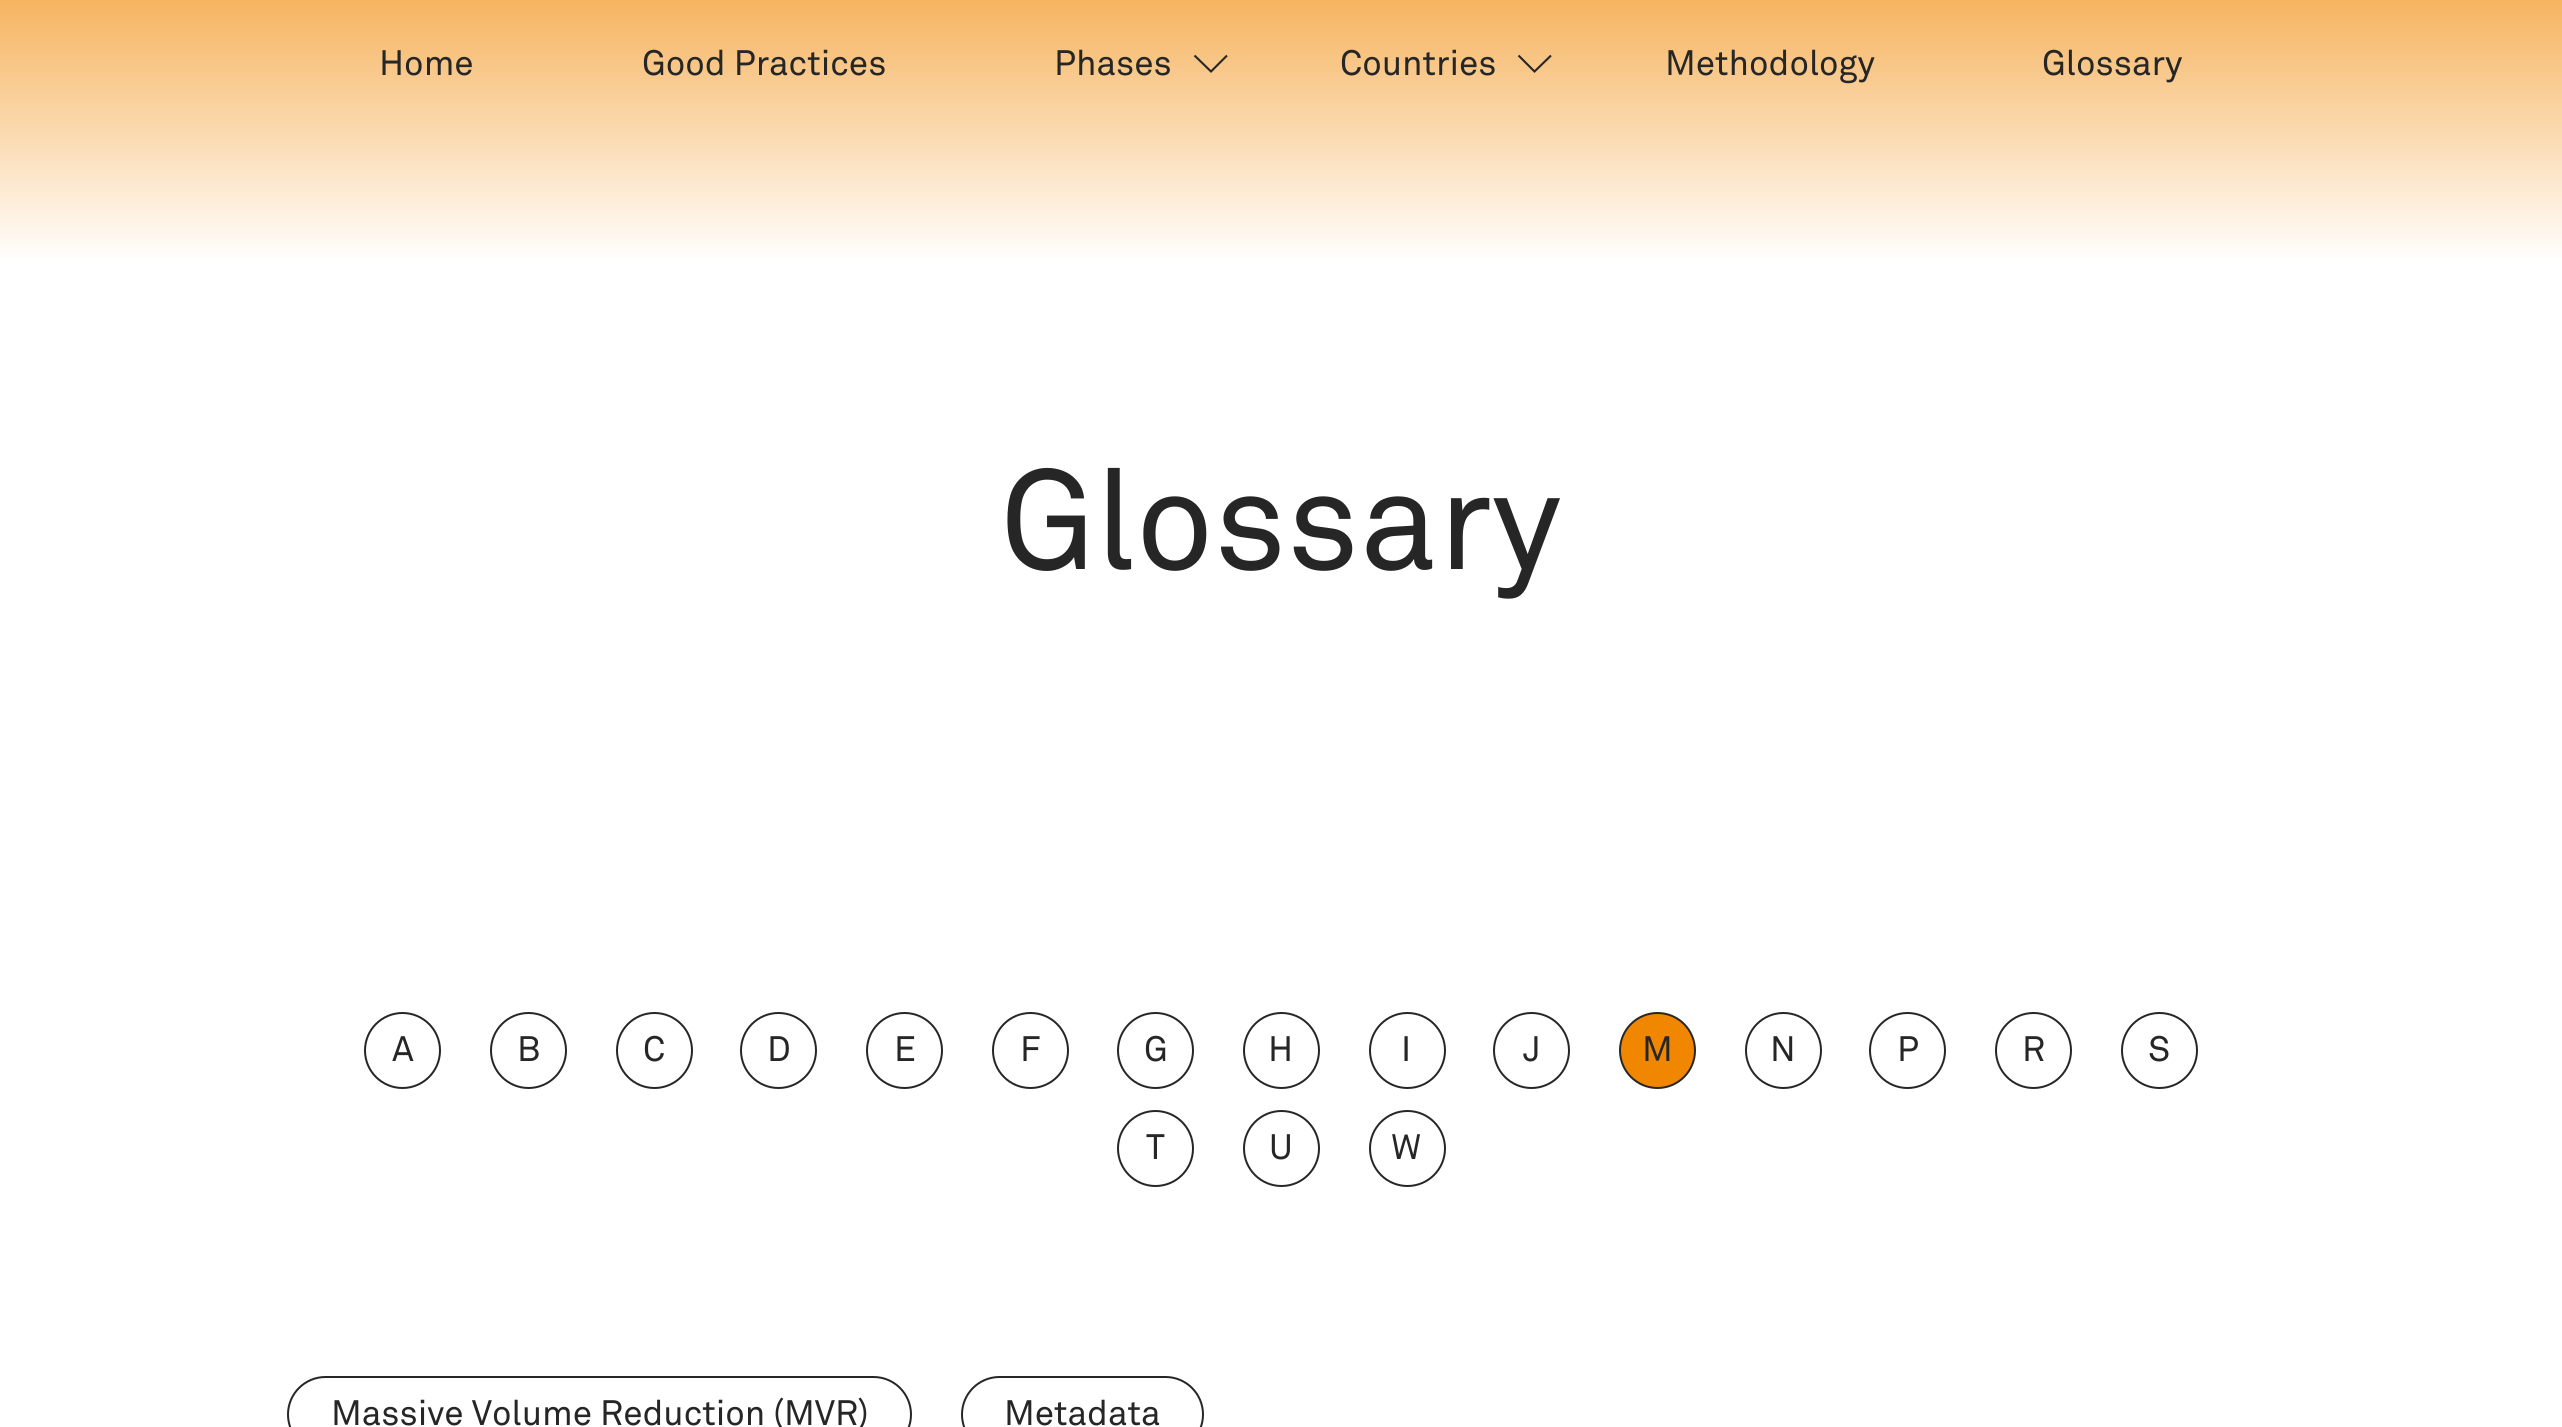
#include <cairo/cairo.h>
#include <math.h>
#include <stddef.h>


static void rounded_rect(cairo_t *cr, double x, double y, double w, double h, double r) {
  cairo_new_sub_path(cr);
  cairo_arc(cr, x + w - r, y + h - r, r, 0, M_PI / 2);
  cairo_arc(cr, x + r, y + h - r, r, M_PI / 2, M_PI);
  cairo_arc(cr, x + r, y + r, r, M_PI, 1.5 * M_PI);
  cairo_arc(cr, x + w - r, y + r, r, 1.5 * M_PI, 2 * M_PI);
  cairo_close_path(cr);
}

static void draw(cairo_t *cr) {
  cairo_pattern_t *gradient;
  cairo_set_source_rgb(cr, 1, 1, 1);
  cairo_paint(cr);
  gradient = cairo_pattern_create_linear(1281, 0, 1281, 263);
  cairo_pattern_add_color_stop_rgba(gradient, 0, 246 / 255.0, 180 / 255.0, 96 / 255.0, 1);
  cairo_pattern_add_color_stop_rgba(gradient, 1, 1, 1, 1, 1);
  cairo_set_source(cr, gradient);
  cairo_pattern_destroy(gradient);
  cairo_rectangle(cr, 0, 0, 2562, 259);
  cairo_fill(cr);
  cairo_new_path(cr);
  cairo_move_to(cr, 1227, 55.5);
  cairo_line_to(cr, 1211, 71.5);
  cairo_line_to(cr, 1194.5, 55.5);
  cairo_set_source_rgb(cr, 38 / 255.0, 38 / 255.0, 38 / 255.0);
  cairo_set_line_width(cr, 2.1);
  cairo_stroke(cr);
  cairo_new_path(cr);
  cairo_move_to(cr, 1551, 55.5);
  cairo_line_to(cr, 1534.5, 71.5);
  cairo_line_to(cr, 1518.5, 55.5);
  cairo_stroke(cr);
  cairo_arc(cr, 402.5, 1050.5, 37.5, 0, 2 * M_PI);
  cairo_set_line_width(cr, 2);
  cairo_stroke(cr);
  cairo_arc(cr, 528.5, 1050.5, 37.5, 0, 2 * M_PI);
  cairo_stroke(cr);
  cairo_arc(cr, 654.5, 1050.5, 37.5, 0, 2 * M_PI);
  cairo_stroke(cr);
  cairo_arc(cr, 778.5, 1050.5, 37.5, 0, 2 * M_PI);
  cairo_stroke(cr);
  cairo_arc(cr, 904.5, 1050.5, 37.5, 0, 2 * M_PI);
  cairo_stroke(cr);
  cairo_arc(cr, 1030.5, 1050.5, 37.5, 0, 2 * M_PI);
  cairo_stroke(cr);
  cairo_arc(cr, 1155.5, 1050.5, 37.5, 0, 2 * M_PI);
  cairo_stroke(cr);
  cairo_arc(cr, 1281.5, 1050.5, 37.5, 0, 2 * M_PI);
  cairo_stroke(cr);
  cairo_arc(cr, 1407.5, 1050.5, 37.5, 0, 2 * M_PI);
  cairo_stroke(cr);
  cairo_arc(cr, 1531.5, 1050.5, 37.5, 0, 2 * M_PI);
  cairo_stroke(cr);
  cairo_set_source_rgb(cr, 241 / 255.0, 135 / 255.0, 1 / 255.0);
  cairo_arc(cr, 1657.5, 1050.5, 37.5, 0, 2 * M_PI);
  cairo_fill_preserve(cr);
  cairo_set_source_rgb(cr, 38 / 255.0, 38 / 255.0, 38 / 255.0);
  cairo_stroke(cr);
  cairo_arc(cr, 1783.5, 1050.5, 37.5, 0, 2 * M_PI);
  cairo_stroke(cr);
  cairo_arc(cr, 1907.5, 1050.5, 37.5, 0, 2 * M_PI);
  cairo_stroke(cr);
  cairo_arc(cr, 2033.5, 1050.5, 37.5, 0, 2 * M_PI);
  cairo_stroke(cr);
  cairo_arc(cr, 2159.5, 1050.5, 37.5, 0, 2 * M_PI);
  cairo_stroke(cr);
  cairo_arc(cr, 1155.5, 1148.5, 37.5, 0, 2 * M_PI);
  cairo_stroke(cr);
  cairo_arc(cr, 1281.5, 1148.5, 37.5, 0, 2 * M_PI);
  cairo_stroke(cr);
  cairo_arc(cr, 1407.5, 1148.5, 37.5, 0, 2 * M_PI);
  cairo_stroke(cr);
  rounded_rect(cr, 288, 1377, 623, 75, 37.5);
  cairo_stroke(cr);
  rounded_rect(cr, 962, 1377, 241, 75, 37.5);
  cairo_stroke(cr);
  cairo_select_font_face(cr, "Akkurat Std", CAIRO_FONT_SLANT_NORMAL, CAIRO_FONT_WEIGHT_NORMAL);
  cairo_set_font_size(cr, 35);
  cairo_move_to(cr, 379, 75);
  cairo_show_text(cr, "Home");
  cairo_move_to(cr, 642, 75);
  cairo_show_text(cr, "Good Practices");
  cairo_move_to(cr, 1054, 75);
  cairo_show_text(cr, "Phases");
  cairo_move_to(cr, 1340, 75);
  cairo_show_text(cr, "Countries");
  cairo_move_to(cr, 1665, 75);
  cairo_show_text(cr, "Methodology");
  cairo_move_to(cr, 2042, 75);
  cairo_show_text(cr, "Glossary");
  cairo_set_font_size(cr, 140);
  cairo_move_to(cr, 1000, 569);
  cairo_show_text(cr, "Glossary");
  cairo_set_font_size(cr, 35);
  cairo_move_to(cr, 392, 1061);
  cairo_show_text(cr, "A");
  cairo_move_to(cr, 517, 1061);
  cairo_show_text(cr, "B");
  cairo_move_to(cr, 643, 1061);
  cairo_show_text(cr, "C");
  cairo_move_to(cr, 767, 1061);
  cairo_show_text(cr, "D");
  cairo_move_to(cr, 894, 1061);
  cairo_show_text(cr, "E");
  cairo_move_to(cr, 1020, 1061);
  cairo_show_text(cr, "F");
  cairo_move_to(cr, 1144, 1061);
  cairo_show_text(cr, "G");
  cairo_move_to(cr, 1268, 1061);
  cairo_show_text(cr, "H");
  cairo_move_to(cr, 1401, 1061);
  cairo_show_text(cr, "I");
  cairo_move_to(cr, 1523, 1061);
  cairo_show_text(cr, "J");
  cairo_move_to(cr, 1642, 1061);
  cairo_show_text(cr, "M");
  cairo_move_to(cr, 1770, 1061);
  cairo_show_text(cr, "N");
  cairo_move_to(cr, 1897, 1061);
  cairo_show_text(cr, "P");
  cairo_move_to(cr, 2022, 1061);
  cairo_show_text(cr, "R");
  cairo_move_to(cr, 2148, 1061);
  cairo_show_text(cr, "S");
  cairo_move_to(cr, 1146, 1159);
  cairo_show_text(cr, "T");
  cairo_move_to(cr, 1269, 1159);
  cairo_show_text(cr, "U");
  cairo_move_to(cr, 1391, 1159);
  cairo_show_text(cr, "W");
  cairo_move_to(cr, 331, 1425);
  cairo_show_text(cr, "Massive Volume Reduction (MVR)");
  cairo_move_to(cr, 1004, 1425);
  cairo_show_text(cr, "Metadata");
}

int main(void) {
  cairo_surface_t *surface = cairo_image_surface_create(CAIRO_FORMAT_RGB24, 2562, 1427);
  cairo_t *cr = cairo_create(surface);
  cairo_font_options_t *options = cairo_font_options_create();
  cairo_font_options_set_hint_metrics(options, CAIRO_HINT_METRICS_OFF);
  cairo_font_options_set_hint_style(options, CAIRO_HINT_STYLE_NONE);
  cairo_set_font_options(cr, options);
  cairo_set_miter_limit(cr, 4);
  draw(cr);
  cairo_surface_write_to_png(surface, "out.png");
  cairo_font_options_destroy(options);
  cairo_destroy(cr);
  cairo_surface_destroy(surface);
  return 0;
}
